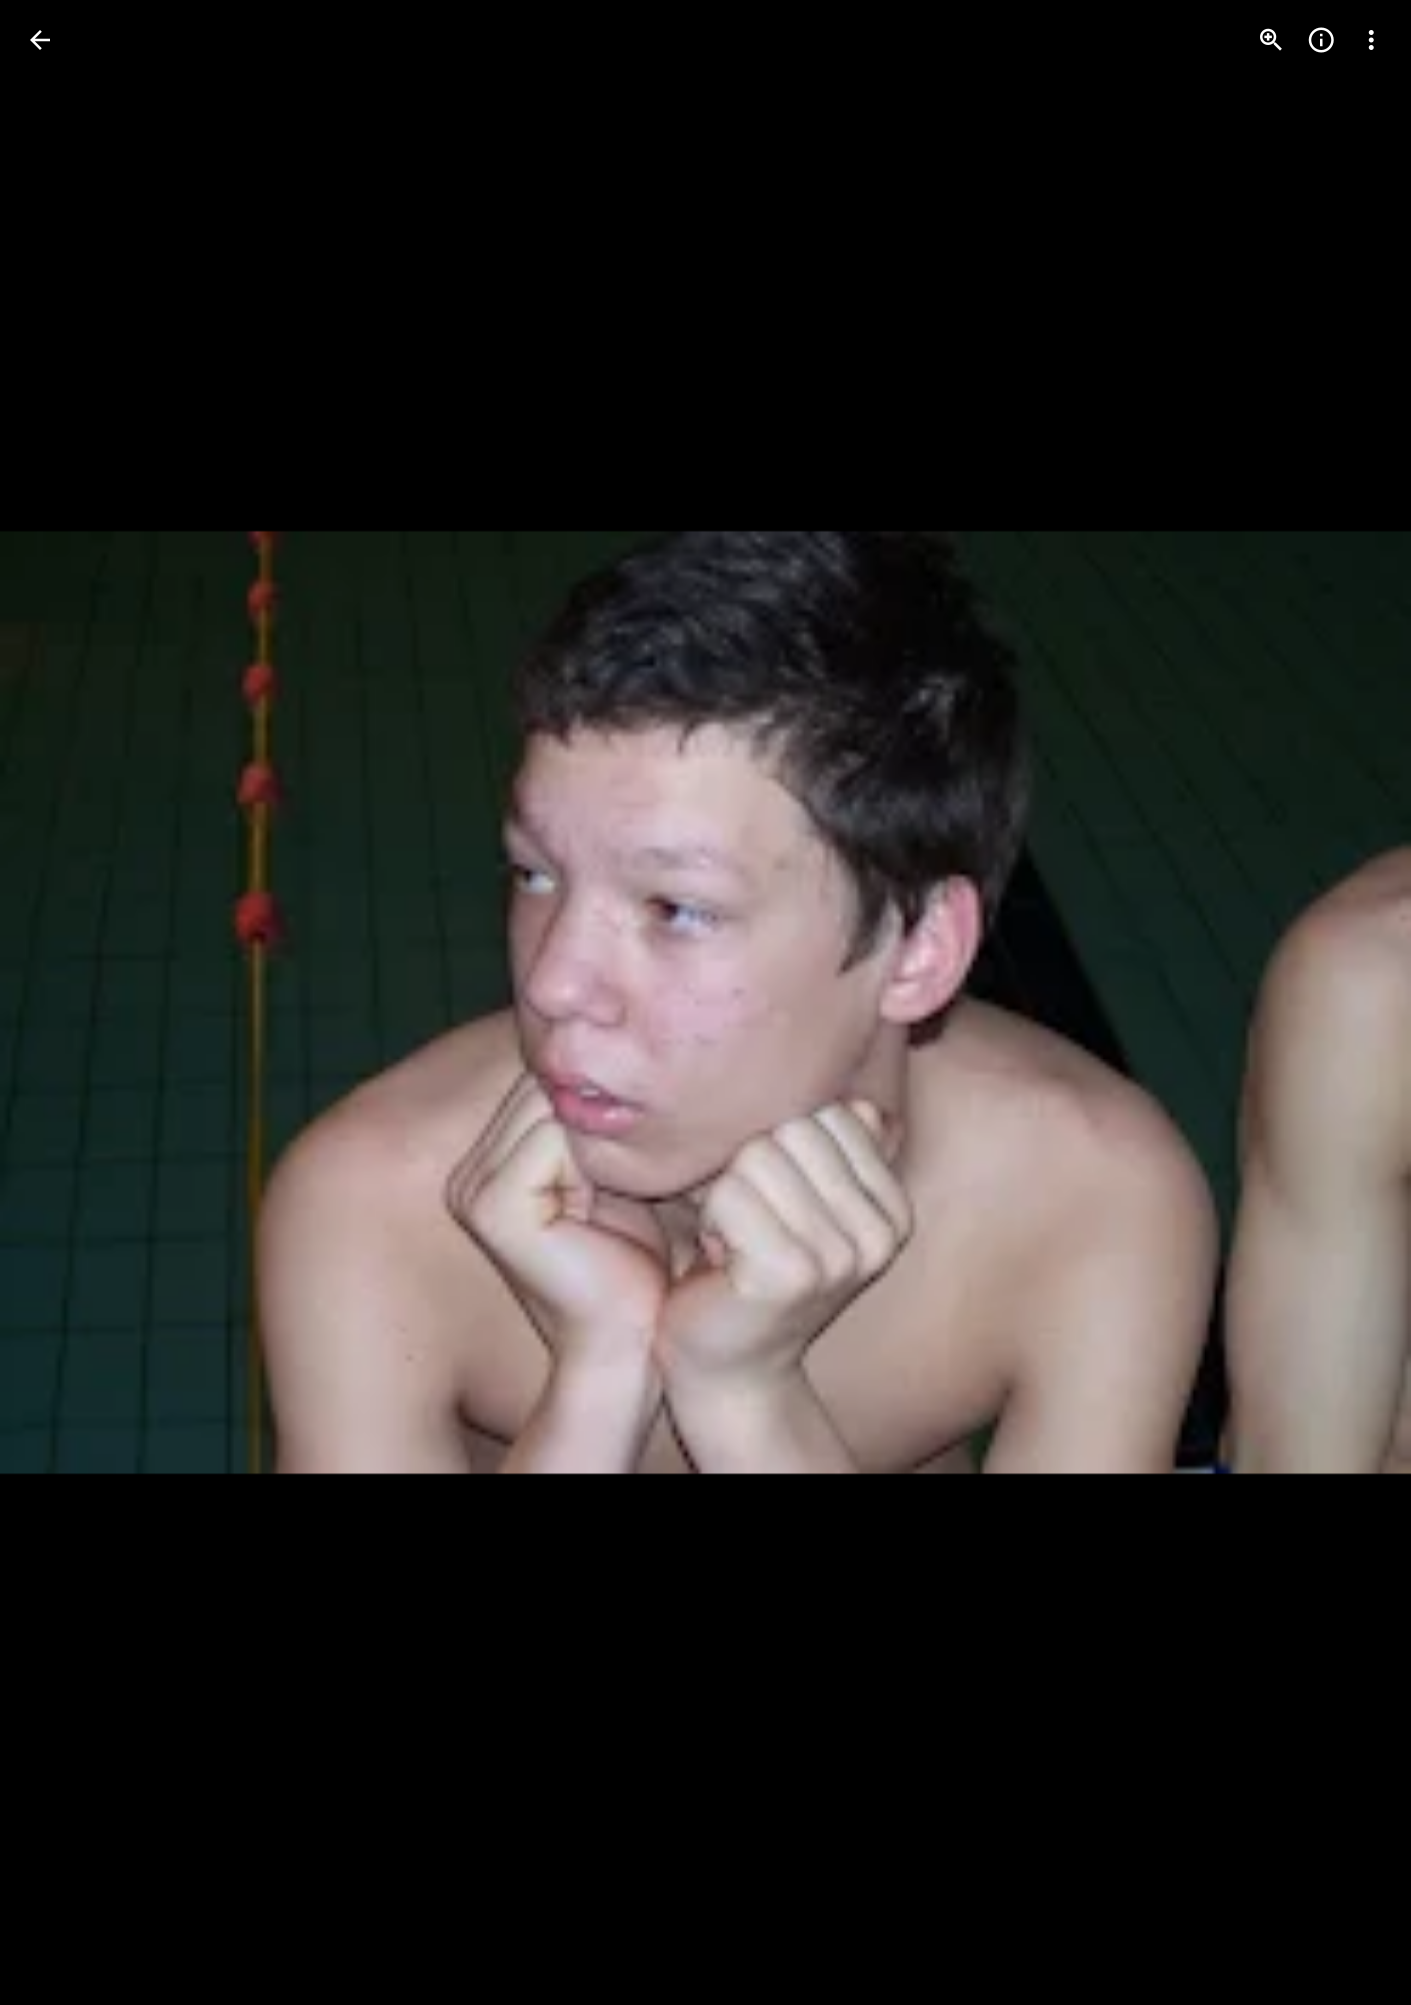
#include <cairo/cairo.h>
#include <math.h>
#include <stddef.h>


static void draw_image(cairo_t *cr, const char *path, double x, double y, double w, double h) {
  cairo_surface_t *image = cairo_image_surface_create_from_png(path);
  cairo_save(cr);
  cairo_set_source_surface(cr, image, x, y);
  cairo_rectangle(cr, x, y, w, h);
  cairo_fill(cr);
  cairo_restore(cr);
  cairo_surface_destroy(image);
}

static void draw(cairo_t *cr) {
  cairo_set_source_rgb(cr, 0, 0, 0);
  cairo_paint(cr);
  draw_image(cr, "images/1.png", 30, 30, 20, 20);
  draw_image(cr, "images/2.png", 1260, 28, 22, 23);
  draw_image(cr, "images/3.png", 1308, 27, 26, 26);
  draw_image(cr, "images/4.png", 1368, 30, 6, 20);
  draw_image(cr, "images/5.png", 0, 530, 1411, 945);
}

int main(void) {
  cairo_surface_t *surface = cairo_image_surface_create(CAIRO_FORMAT_RGB24, 1411, 2005);
  cairo_t *cr = cairo_create(surface);
  cairo_font_options_t *options = cairo_font_options_create();
  cairo_font_options_set_hint_metrics(options, CAIRO_HINT_METRICS_OFF);
  cairo_font_options_set_hint_style(options, CAIRO_HINT_STYLE_NONE);
  cairo_set_font_options(cr, options);
  cairo_set_miter_limit(cr, 4);
  draw(cr);
  cairo_surface_write_to_png(surface, "out.png");
  cairo_font_options_destroy(options);
  cairo_destroy(cr);
  cairo_surface_destroy(surface);
  return 0;
}
